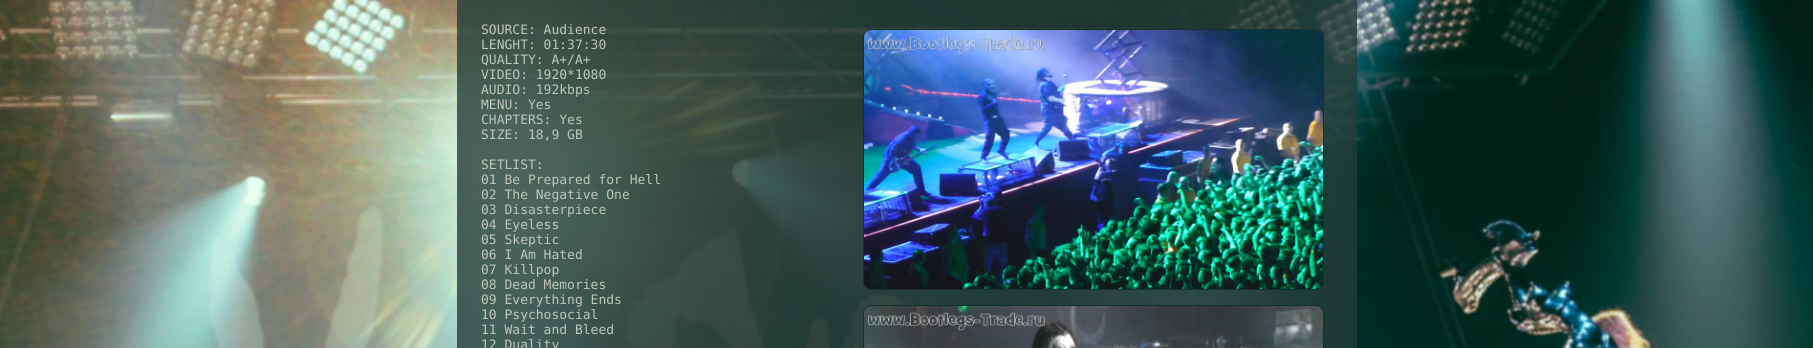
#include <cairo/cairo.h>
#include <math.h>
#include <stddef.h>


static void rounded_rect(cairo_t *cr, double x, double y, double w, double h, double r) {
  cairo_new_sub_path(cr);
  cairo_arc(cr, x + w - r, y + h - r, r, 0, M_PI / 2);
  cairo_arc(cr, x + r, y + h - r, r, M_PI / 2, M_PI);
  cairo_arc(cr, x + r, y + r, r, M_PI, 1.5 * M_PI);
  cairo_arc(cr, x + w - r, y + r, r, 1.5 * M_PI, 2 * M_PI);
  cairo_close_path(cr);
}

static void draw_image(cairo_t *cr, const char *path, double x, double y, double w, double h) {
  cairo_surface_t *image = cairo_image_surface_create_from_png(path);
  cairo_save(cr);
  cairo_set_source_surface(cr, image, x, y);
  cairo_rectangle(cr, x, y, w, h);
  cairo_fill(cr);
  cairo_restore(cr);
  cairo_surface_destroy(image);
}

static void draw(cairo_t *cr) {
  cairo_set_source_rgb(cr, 1, 1, 1);
  cairo_paint(cr);
  draw_image(cr, "images/1.png", 0, 0, 1813, 348);
  cairo_set_source_rgba(cr, 37 / 255.0, 60 / 255.0, 56 / 255.0, 0.8);
  cairo_rectangle(cr, 457, 0, 900, 348);
  cairo_fill(cr);
  rounded_rect(cr, 863.5, 29.5, 460, 260, 7.5);
  cairo_set_source_rgb(cr, 22 / 255.0, 49 / 255.0, 43 / 255.0);
  cairo_set_line_width(cr, 1);
  cairo_stroke(cr);
  draw_image(cr, "images/2.png", 864, 30, 459, 259);
  rounded_rect(cr, 863.5, 305.5, 460, 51, 7.5);
  cairo_stroke(cr);
  draw_image(cr, "images/3.png", 864, 306, 459, 42);
  cairo_select_font_face(cr, "DejaVu Sans Mono", CAIRO_FONT_SLANT_NORMAL, CAIRO_FONT_WEIGHT_NORMAL);
  cairo_set_font_size(cr, 13);
  cairo_set_source_rgb(cr, 190 / 255.0, 199 / 255.0, 185 / 255.0);
  cairo_move_to(cr, 481, 34);
  cairo_show_text(cr, "SOURCE: Audience");
  cairo_move_to(cr, 481, 49);
  cairo_show_text(cr, "LENGHT: 01:37:30");
  cairo_move_to(cr, 481, 64);
  cairo_show_text(cr, "QUALITY: A+/A+");
  cairo_move_to(cr, 481, 79);
  cairo_show_text(cr, "VIDEO: 1920*1080");
  cairo_move_to(cr, 481, 94);
  cairo_show_text(cr, "AUDIO: 192kbps");
  cairo_move_to(cr, 481, 109);
  cairo_show_text(cr, "MENU: Yes");
  cairo_move_to(cr, 481, 124);
  cairo_show_text(cr, "CHAPTERS: Yes");
  cairo_move_to(cr, 481, 139);
  cairo_show_text(cr, "SIZE: 18,9 GB");
  cairo_move_to(cr, 481, 169);
  cairo_show_text(cr, "SETLIST:");
  cairo_move_to(cr, 481, 184);
  cairo_show_text(cr, "01 Be Prepared for Hell");
  cairo_move_to(cr, 481, 199);
  cairo_show_text(cr, "02 The Negative One");
  cairo_move_to(cr, 481, 214);
  cairo_show_text(cr, "03 Disasterpiece");
  cairo_move_to(cr, 481, 229);
  cairo_show_text(cr, "04 Eyeless");
  cairo_move_to(cr, 481, 244);
  cairo_show_text(cr, "05 Skeptic");
  cairo_move_to(cr, 481, 259);
  cairo_show_text(cr, "06 I Am Hated");
  cairo_move_to(cr, 481, 274);
  cairo_show_text(cr, "07 Killpop");
  cairo_move_to(cr, 481, 289);
  cairo_show_text(cr, "08 Dead Memories");
  cairo_move_to(cr, 481, 304);
  cairo_show_text(cr, "09 Everything Ends");
  cairo_move_to(cr, 481, 319);
  cairo_show_text(cr, "10 Psychosocial");
  cairo_move_to(cr, 481, 334);
  cairo_show_text(cr, "11 Wait and Bleed");
  cairo_move_to(cr, 481, 349);
  cairo_show_text(cr, "12 Duality");
}

int main(void) {
  cairo_surface_t *surface = cairo_image_surface_create(CAIRO_FORMAT_RGB24, 1813, 348);
  cairo_t *cr = cairo_create(surface);
  cairo_font_options_t *options = cairo_font_options_create();
  cairo_font_options_set_hint_metrics(options, CAIRO_HINT_METRICS_OFF);
  cairo_font_options_set_hint_style(options, CAIRO_HINT_STYLE_NONE);
  cairo_set_font_options(cr, options);
  cairo_set_miter_limit(cr, 4);
  draw(cr);
  cairo_surface_write_to_png(surface, "out.png");
  cairo_font_options_destroy(options);
  cairo_destroy(cr);
  cairo_surface_destroy(surface);
  return 0;
}
